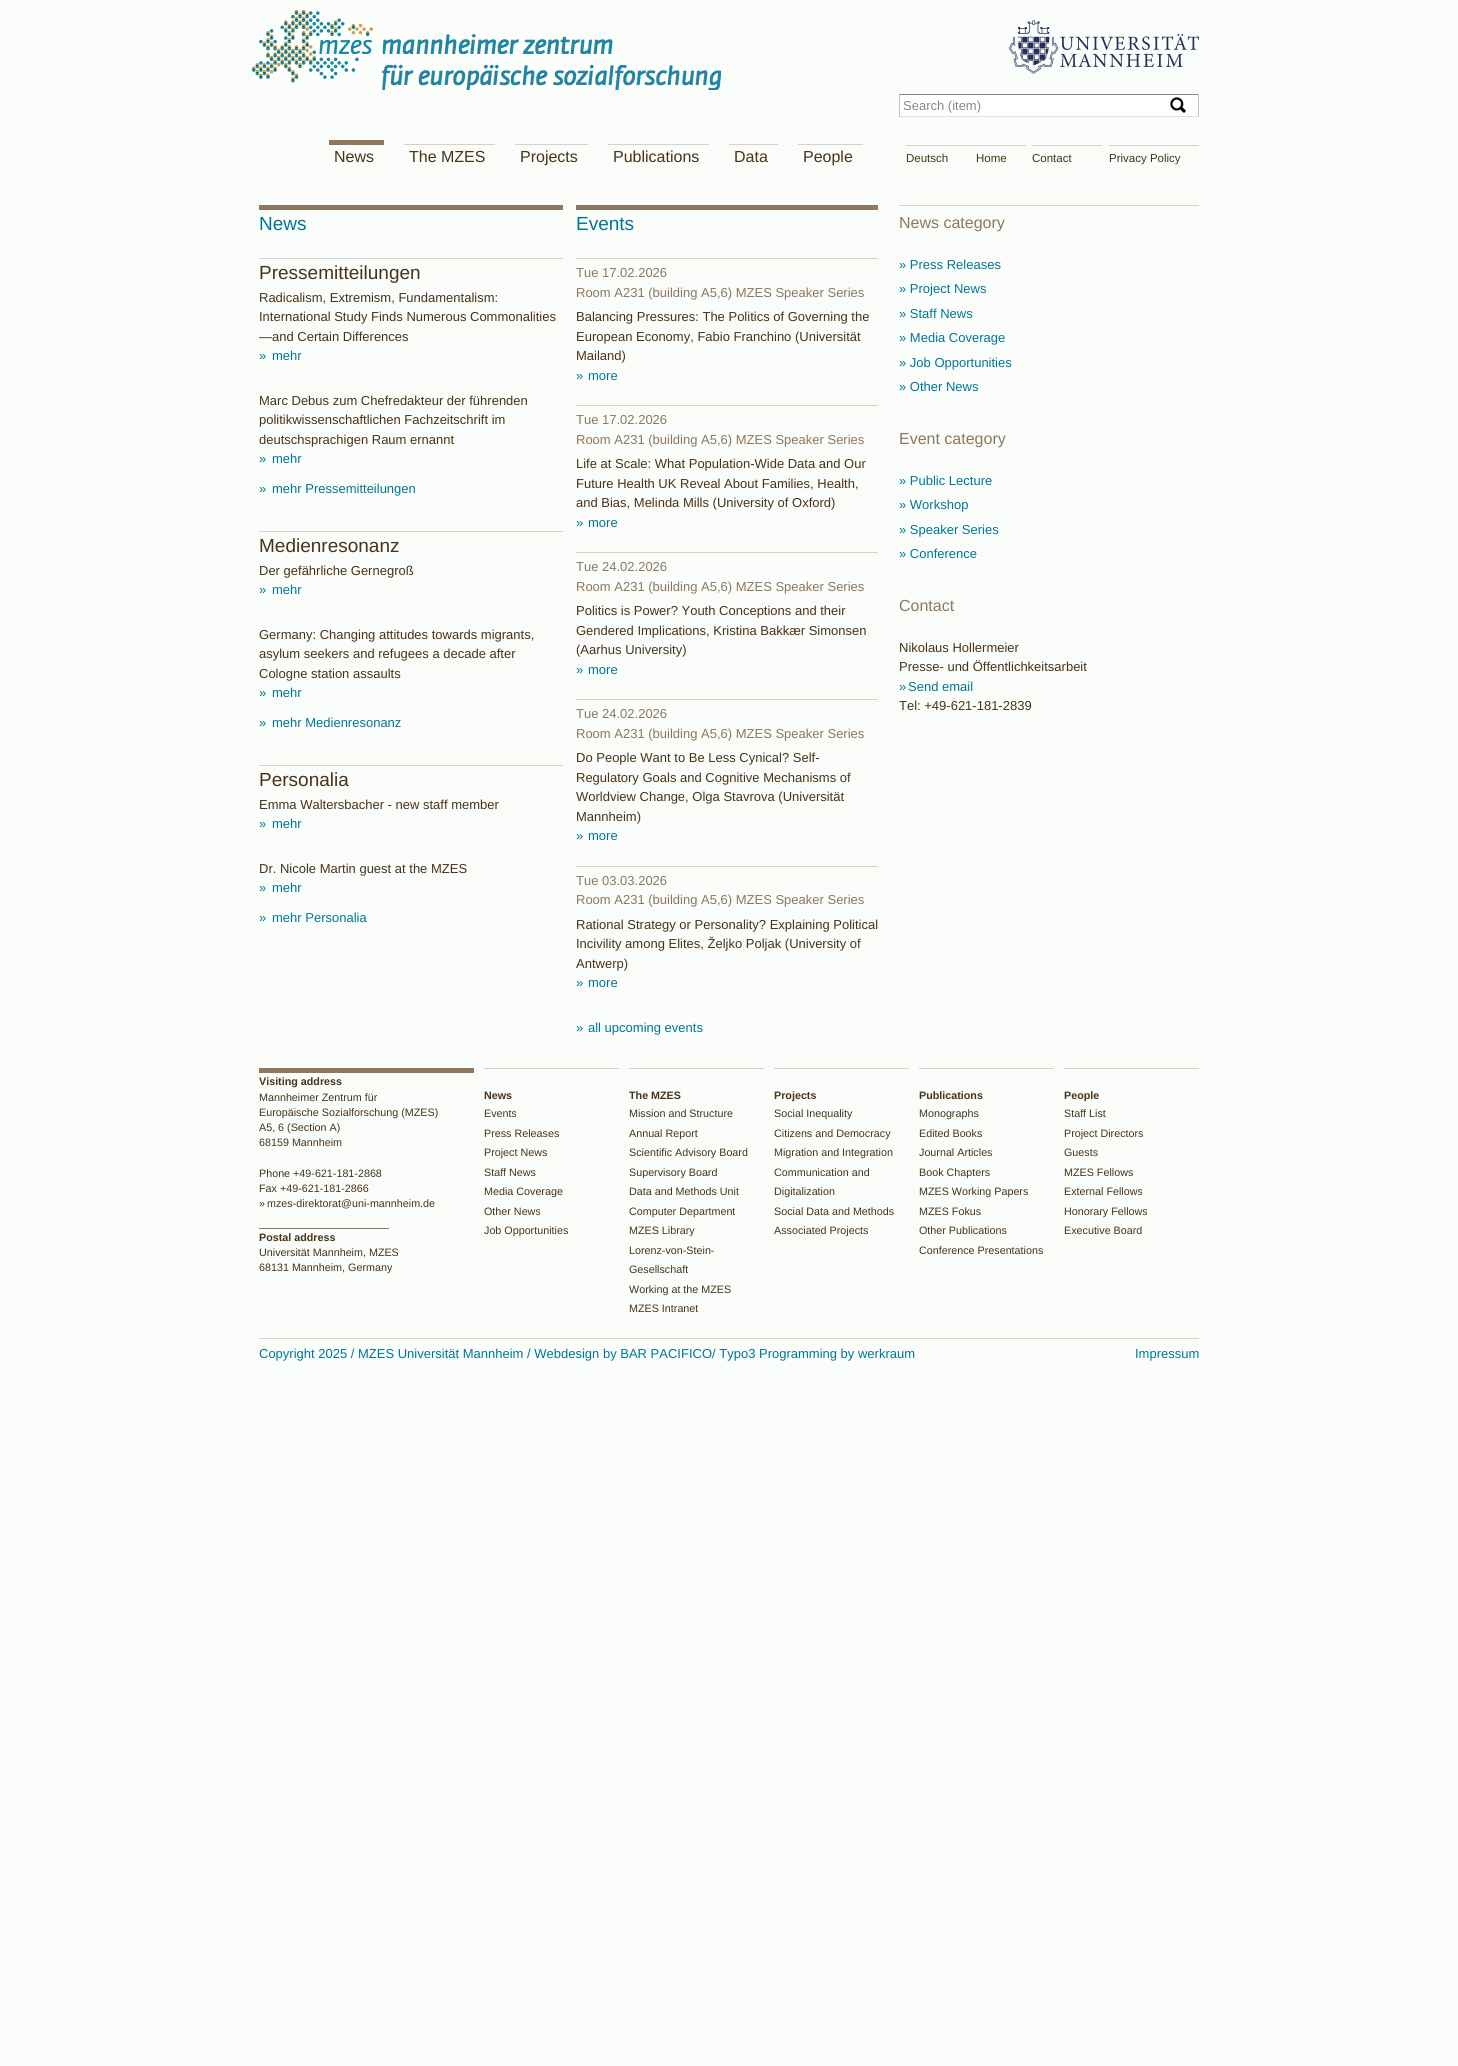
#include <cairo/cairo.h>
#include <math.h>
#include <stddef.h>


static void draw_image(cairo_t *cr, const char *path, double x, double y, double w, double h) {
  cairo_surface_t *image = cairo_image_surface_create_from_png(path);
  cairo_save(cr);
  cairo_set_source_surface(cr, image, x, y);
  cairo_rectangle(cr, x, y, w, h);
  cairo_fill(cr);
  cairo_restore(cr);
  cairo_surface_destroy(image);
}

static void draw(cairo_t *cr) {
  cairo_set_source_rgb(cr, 250 / 255.0, 252 / 255.0, 249 / 255.0);
  cairo_paint(cr);
  draw_image(cr, "images/1.png", 252, 10, 470, 81);
  draw_image(cr, "images/2.png", 1009, 20, 190, 54);
  cairo_set_source_rgb(cr, 1, 1, 1);
  cairo_rectangle(cr, 900, 95, 298, 21);
  cairo_fill(cr);
  draw_image(cr, "images/3.png", 1170, 97, 16, 16);
  cairo_set_source_rgb(cr, 132 / 255.0, 132 / 255.0, 132 / 255.0);
  cairo_rectangle(cr, 899, 94, 300, 1);
  cairo_fill(cr);
  cairo_set_source_rgb(cr, 193 / 255.0, 193 / 255.0, 193 / 255.0);
  cairo_rectangle(cr, 1198, 94, 1, 23);
  cairo_fill(cr);
  cairo_set_source_rgb(cr, 225 / 255.0, 225 / 255.0, 225 / 255.0);
  cairo_rectangle(cr, 899, 116, 300, 1);
  cairo_fill(cr);
  cairo_set_source_rgb(cr, 193 / 255.0, 193 / 255.0, 193 / 255.0);
  cairo_rectangle(cr, 899, 94, 1, 23);
  cairo_fill(cr);
  cairo_set_source_rgb(cr, 139 / 255.0, 120 / 255.0, 94 / 255.0);
  cairo_rectangle(cr, 329, 140, 55, 5);
  cairo_fill(cr);
  cairo_set_source_rgb(cr, 215 / 255.0, 208 / 255.0, 197 / 255.0);
  cairo_rectangle(cr, 404, 144, 91, 1);
  cairo_fill(cr);
  cairo_rectangle(cr, 515, 144, 73, 1);
  cairo_fill(cr);
  cairo_rectangle(cr, 608, 144, 101, 1);
  cairo_fill(cr);
  cairo_rectangle(cr, 729, 144, 49, 1);
  cairo_fill(cr);
  cairo_rectangle(cr, 798, 144, 65, 1);
  cairo_fill(cr);
  cairo_rectangle(cr, 906, 145, 120, 1);
  cairo_fill(cr);
  cairo_rectangle(cr, 1032, 145, 70, 1);
  cairo_fill(cr);
  cairo_rectangle(cr, 1109, 145, 90, 1);
  cairo_fill(cr);
  cairo_set_source_rgb(cr, 139 / 255.0, 120 / 255.0, 94 / 255.0);
  cairo_rectangle(cr, 259, 205, 304, 5);
  cairo_fill(cr);
  cairo_set_source_rgb(cr, 215 / 255.0, 208 / 255.0, 197 / 255.0);
  cairo_rectangle(cr, 259, 258, 304, 1);
  cairo_fill(cr);
  cairo_rectangle(cr, 259, 531, 304, 1);
  cairo_fill(cr);
  cairo_rectangle(cr, 259, 765, 304, 1);
  cairo_fill(cr);
  cairo_set_source_rgb(cr, 139 / 255.0, 120 / 255.0, 94 / 255.0);
  cairo_rectangle(cr, 576, 205, 302, 5);
  cairo_fill(cr);
  cairo_set_source_rgb(cr, 215 / 255.0, 208 / 255.0, 197 / 255.0);
  cairo_rectangle(cr, 576, 258, 302, 1);
  cairo_fill(cr);
  cairo_rectangle(cr, 576, 405, 302, 1);
  cairo_fill(cr);
  cairo_rectangle(cr, 576, 552, 302, 1);
  cairo_fill(cr);
  cairo_rectangle(cr, 576, 699, 302, 1);
  cairo_fill(cr);
  cairo_rectangle(cr, 576, 866, 302, 1);
  cairo_fill(cr);
  cairo_rectangle(cr, 899, 205, 300, 1);
  cairo_fill(cr);
  cairo_set_source_rgb(cr, 139 / 255.0, 120 / 255.0, 94 / 255.0);
  cairo_rectangle(cr, 259, 1068, 215, 5);
  cairo_fill(cr);
  cairo_rectangle(cr, 259, 1228, 130, 1);
  cairo_fill(cr);
  cairo_set_source_rgb(cr, 215 / 255.0, 208 / 255.0, 197 / 255.0);
  cairo_rectangle(cr, 484, 1068, 135, 1);
  cairo_fill(cr);
  cairo_rectangle(cr, 629, 1068, 135, 1);
  cairo_fill(cr);
  cairo_rectangle(cr, 774, 1068, 135, 1);
  cairo_fill(cr);
  cairo_rectangle(cr, 919, 1068, 135, 1);
  cairo_fill(cr);
  cairo_rectangle(cr, 1064, 1068, 135, 1);
  cairo_fill(cr);
  cairo_rectangle(cr, 259, 1338, 940, 1);
  cairo_fill(cr);
  cairo_select_font_face(cr, "Liberation Sans", CAIRO_FONT_SLANT_NORMAL, CAIRO_FONT_WEIGHT_NORMAL);
  cairo_set_font_size(cr, 13);
  cairo_set_source_rgb(cr, 136 / 255.0, 136 / 255.0, 136 / 255.0);
  cairo_move_to(cr, 903, 110);
  cairo_show_text(cr, "Search (item)");
  cairo_set_font_size(cr, 16);
  cairo_set_source_rgb(cr, 71 / 255.0, 51 / 255.0, 24 / 255.0);
  cairo_move_to(cr, 334, 162);
  cairo_show_text(cr, "News");
  cairo_move_to(cr, 409, 162);
  cairo_show_text(cr, "The MZES");
  cairo_move_to(cr, 520, 162);
  cairo_show_text(cr, "Projects");
  cairo_move_to(cr, 613, 162);
  cairo_show_text(cr, "Publications");
  cairo_move_to(cr, 734, 162);
  cairo_show_text(cr, "Data");
  cairo_move_to(cr, 803, 162);
  cairo_show_text(cr, "People");
  cairo_set_font_size(cr, 11.5);
  cairo_move_to(cr, 906, 162);
  cairo_show_text(cr, "Deutsch");
  cairo_move_to(cr, 976, 162);
  cairo_show_text(cr, "Home");
  cairo_move_to(cr, 1032, 162);
  cairo_show_text(cr, "Contact");
  cairo_move_to(cr, 1109, 162);
  cairo_show_text(cr, "Privacy Policy");
  cairo_set_font_size(cr, 19);
  cairo_set_source_rgb(cr, 0, 118 / 255.0, 150 / 255.0);
  cairo_move_to(cr, 259, 230);
  cairo_show_text(cr, "News");
  cairo_set_source_rgb(cr, 71 / 255.0, 51 / 255.0, 24 / 255.0);
  cairo_move_to(cr, 259, 279);
  cairo_show_text(cr, "Pressemitteilungen");
  cairo_set_font_size(cr, 13);
  cairo_move_to(cr, 259, 302);
  cairo_show_text(cr, "Radicalism, Extremism, Fundamentalism:");
  cairo_move_to(cr, 259, 321);
  cairo_show_text(cr, "International Study Finds Numerous Commonalities");
  cairo_move_to(cr, 259, 341);
  cairo_show_text(cr, "—and Certain Differences");
  cairo_set_source_rgb(cr, 0, 118 / 255.0, 150 / 255.0);
  cairo_move_to(cr, 259, 360);
  cairo_show_text(cr, "»");
  cairo_move_to(cr, 272, 360);
  cairo_show_text(cr, "mehr");
  cairo_set_source_rgb(cr, 71 / 255.0, 51 / 255.0, 24 / 255.0);
  cairo_move_to(cr, 259, 405);
  cairo_show_text(cr, "Marc Debus zum Chefredakteur der führenden");
  cairo_move_to(cr, 259, 424);
  cairo_show_text(cr, "politikwissenschaftlichen Fachzeitschrift im");
  cairo_move_to(cr, 259, 444);
  cairo_show_text(cr, "deutschsprachigen Raum ernannt");
  cairo_set_source_rgb(cr, 0, 118 / 255.0, 150 / 255.0);
  cairo_move_to(cr, 259, 463);
  cairo_show_text(cr, "»");
  cairo_move_to(cr, 272, 463);
  cairo_show_text(cr, "mehr");
  cairo_move_to(cr, 259, 493);
  cairo_show_text(cr, "»");
  cairo_move_to(cr, 272, 493);
  cairo_show_text(cr, "mehr Pressemitteilungen");
  cairo_set_font_size(cr, 19);
  cairo_set_source_rgb(cr, 71 / 255.0, 51 / 255.0, 24 / 255.0);
  cairo_move_to(cr, 259, 552);
  cairo_show_text(cr, "Medienresonanz");
  cairo_set_font_size(cr, 13);
  cairo_move_to(cr, 259, 575);
  cairo_show_text(cr, "Der gefährliche Gernegroß");
  cairo_set_source_rgb(cr, 0, 118 / 255.0, 150 / 255.0);
  cairo_move_to(cr, 259, 594);
  cairo_show_text(cr, "»");
  cairo_move_to(cr, 272, 594);
  cairo_show_text(cr, "mehr");
  cairo_set_source_rgb(cr, 71 / 255.0, 51 / 255.0, 24 / 255.0);
  cairo_move_to(cr, 259, 639);
  cairo_show_text(cr, "Germany: Changing attitudes towards migrants,");
  cairo_move_to(cr, 259, 658);
  cairo_show_text(cr, "asylum seekers and refugees a decade after");
  cairo_move_to(cr, 259, 678);
  cairo_show_text(cr, "Cologne station assaults");
  cairo_set_source_rgb(cr, 0, 118 / 255.0, 150 / 255.0);
  cairo_move_to(cr, 259, 697);
  cairo_show_text(cr, "»");
  cairo_move_to(cr, 272, 697);
  cairo_show_text(cr, "mehr");
  cairo_move_to(cr, 259, 727);
  cairo_show_text(cr, "»");
  cairo_move_to(cr, 272, 727);
  cairo_show_text(cr, "mehr Medienresonanz");
  cairo_set_font_size(cr, 19);
  cairo_set_source_rgb(cr, 71 / 255.0, 51 / 255.0, 24 / 255.0);
  cairo_move_to(cr, 259, 786);
  cairo_show_text(cr, "Personalia");
  cairo_set_font_size(cr, 13);
  cairo_move_to(cr, 259, 809);
  cairo_show_text(cr, "Emma Waltersbacher - new staff member");
  cairo_set_source_rgb(cr, 0, 118 / 255.0, 150 / 255.0);
  cairo_move_to(cr, 259, 828);
  cairo_show_text(cr, "»");
  cairo_move_to(cr, 272, 828);
  cairo_show_text(cr, "mehr");
  cairo_set_source_rgb(cr, 71 / 255.0, 51 / 255.0, 24 / 255.0);
  cairo_move_to(cr, 259, 873);
  cairo_show_text(cr, "Dr. Nicole Martin guest at the MZES");
  cairo_set_source_rgb(cr, 0, 118 / 255.0, 150 / 255.0);
  cairo_move_to(cr, 259, 892);
  cairo_show_text(cr, "»");
  cairo_move_to(cr, 272, 892);
  cairo_show_text(cr, "mehr");
  cairo_move_to(cr, 259, 922);
  cairo_show_text(cr, "»");
  cairo_move_to(cr, 272, 922);
  cairo_show_text(cr, "mehr Personalia");
  cairo_set_font_size(cr, 19);
  cairo_move_to(cr, 576, 230);
  cairo_show_text(cr, "Events");
  cairo_set_font_size(cr, 13);
  cairo_set_source_rgb(cr, 139 / 255.0, 120 / 255.0, 94 / 255.0);
  cairo_move_to(cr, 576, 277);
  cairo_show_text(cr, "Tue 17.02.2026");
  cairo_move_to(cr, 576, 297);
  cairo_show_text(cr, "Room A231 (building A5,6) MZES Speaker Series");
  cairo_set_source_rgb(cr, 71 / 255.0, 51 / 255.0, 24 / 255.0);
  cairo_move_to(cr, 576, 321);
  cairo_show_text(cr, "Balancing Pressures: The Politics of Governing the");
  cairo_move_to(cr, 576, 341);
  cairo_show_text(cr, "European Economy, Fabio Franchino (Universität");
  cairo_move_to(cr, 576, 360);
  cairo_show_text(cr, "Mailand)");
  cairo_set_source_rgb(cr, 0, 118 / 255.0, 150 / 255.0);
  cairo_move_to(cr, 576, 380);
  cairo_show_text(cr, "»");
  cairo_move_to(cr, 588, 380);
  cairo_show_text(cr, "more");
  cairo_set_source_rgb(cr, 139 / 255.0, 120 / 255.0, 94 / 255.0);
  cairo_move_to(cr, 576, 424);
  cairo_show_text(cr, "Tue 17.02.2026");
  cairo_move_to(cr, 576, 444);
  cairo_show_text(cr, "Room A231 (building A5,6) MZES Speaker Series");
  cairo_set_source_rgb(cr, 71 / 255.0, 51 / 255.0, 24 / 255.0);
  cairo_move_to(cr, 576, 468);
  cairo_show_text(cr, "Life at Scale: What Population-Wide Data and Our");
  cairo_move_to(cr, 576, 488);
  cairo_show_text(cr, "Future Health UK Reveal About Families, Health,");
  cairo_move_to(cr, 576, 507);
  cairo_show_text(cr, "and Bias, Melinda Mills (University of Oxford)");
  cairo_set_source_rgb(cr, 0, 118 / 255.0, 150 / 255.0);
  cairo_move_to(cr, 576, 527);
  cairo_show_text(cr, "»");
  cairo_move_to(cr, 588, 527);
  cairo_show_text(cr, "more");
  cairo_set_source_rgb(cr, 139 / 255.0, 120 / 255.0, 94 / 255.0);
  cairo_move_to(cr, 576, 571);
  cairo_show_text(cr, "Tue 24.02.2026");
  cairo_move_to(cr, 576, 591);
  cairo_show_text(cr, "Room A231 (building A5,6) MZES Speaker Series");
  cairo_set_source_rgb(cr, 71 / 255.0, 51 / 255.0, 24 / 255.0);
  cairo_move_to(cr, 576, 615);
  cairo_show_text(cr, "Politics is Power? Youth Conceptions and their");
  cairo_move_to(cr, 576, 635);
  cairo_show_text(cr, "Gendered Implications, Kristina Bakkær Simonsen");
  cairo_move_to(cr, 576, 654);
  cairo_show_text(cr, "(Aarhus University)");
  cairo_set_source_rgb(cr, 0, 118 / 255.0, 150 / 255.0);
  cairo_move_to(cr, 576, 674);
  cairo_show_text(cr, "»");
  cairo_move_to(cr, 588, 674);
  cairo_show_text(cr, "more");
  cairo_set_source_rgb(cr, 139 / 255.0, 120 / 255.0, 94 / 255.0);
  cairo_move_to(cr, 576, 718);
  cairo_show_text(cr, "Tue 24.02.2026");
  cairo_move_to(cr, 576, 738);
  cairo_show_text(cr, "Room A231 (building A5,6) MZES Speaker Series");
  cairo_set_source_rgb(cr, 71 / 255.0, 51 / 255.0, 24 / 255.0);
  cairo_move_to(cr, 576, 762);
  cairo_show_text(cr, "Do People Want to Be Less Cynical? Self-");
  cairo_move_to(cr, 576, 782);
  cairo_show_text(cr, "Regulatory Goals and Cognitive Mechanisms of");
  cairo_move_to(cr, 576, 801);
  cairo_show_text(cr, "Worldview Change, Olga Stavrova (Universität");
  cairo_move_to(cr, 576, 821);
  cairo_show_text(cr, "Mannheim)");
  cairo_set_source_rgb(cr, 0, 118 / 255.0, 150 / 255.0);
  cairo_move_to(cr, 576, 840);
  cairo_show_text(cr, "»");
  cairo_move_to(cr, 588, 840);
  cairo_show_text(cr, "more");
  cairo_set_source_rgb(cr, 139 / 255.0, 120 / 255.0, 94 / 255.0);
  cairo_move_to(cr, 576, 885);
  cairo_show_text(cr, "Tue 03.03.2026");
  cairo_move_to(cr, 576, 904);
  cairo_show_text(cr, "Room A231 (building A5,6) MZES Speaker Series");
  cairo_set_source_rgb(cr, 71 / 255.0, 51 / 255.0, 24 / 255.0);
  cairo_move_to(cr, 576, 929);
  cairo_show_text(cr, "Rational Strategy or Personality? Explaining Political");
  cairo_move_to(cr, 576, 948);
  cairo_show_text(cr, "Incivility among Elites, Željko Poljak (University of");
  cairo_move_to(cr, 576, 968);
  cairo_show_text(cr, "Antwerp)");
  cairo_set_source_rgb(cr, 0, 118 / 255.0, 150 / 255.0);
  cairo_move_to(cr, 576, 987);
  cairo_show_text(cr, "»");
  cairo_move_to(cr, 588, 987);
  cairo_show_text(cr, "more");
  cairo_move_to(cr, 576, 1032);
  cairo_show_text(cr, "»");
  cairo_move_to(cr, 588, 1032);
  cairo_show_text(cr, "all upcoming events");
  cairo_set_font_size(cr, 16);
  cairo_set_source_rgb(cr, 139 / 255.0, 120 / 255.0, 94 / 255.0);
  cairo_move_to(cr, 899, 228);
  cairo_show_text(cr, "News category");
  cairo_set_font_size(cr, 13);
  cairo_set_source_rgb(cr, 0, 118 / 255.0, 150 / 255.0);
  cairo_move_to(cr, 899, 269);
  cairo_show_text(cr, "» Press Releases");
  cairo_move_to(cr, 899, 293);
  cairo_show_text(cr, "» Project News");
  cairo_move_to(cr, 899, 318);
  cairo_show_text(cr, "» Staff News");
  cairo_move_to(cr, 899, 342);
  cairo_show_text(cr, "» Media Coverage");
  cairo_move_to(cr, 899, 367);
  cairo_show_text(cr, "» Job Opportunities");
  cairo_move_to(cr, 899, 391);
  cairo_show_text(cr, "» Other News");
  cairo_set_font_size(cr, 16);
  cairo_set_source_rgb(cr, 139 / 255.0, 120 / 255.0, 94 / 255.0);
  cairo_move_to(cr, 899, 444);
  cairo_show_text(cr, "Event category");
  cairo_set_font_size(cr, 13);
  cairo_set_source_rgb(cr, 0, 118 / 255.0, 150 / 255.0);
  cairo_move_to(cr, 899, 485);
  cairo_show_text(cr, "» Public Lecture");
  cairo_move_to(cr, 899, 509);
  cairo_show_text(cr, "» Workshop");
  cairo_move_to(cr, 899, 534);
  cairo_show_text(cr, "» Speaker Series");
  cairo_move_to(cr, 899, 558);
  cairo_show_text(cr, "» Conference");
  cairo_set_font_size(cr, 16);
  cairo_set_source_rgb(cr, 139 / 255.0, 120 / 255.0, 94 / 255.0);
  cairo_move_to(cr, 899, 611);
  cairo_show_text(cr, "Contact");
  cairo_set_font_size(cr, 13);
  cairo_set_source_rgb(cr, 71 / 255.0, 51 / 255.0, 24 / 255.0);
  cairo_move_to(cr, 899, 652);
  cairo_show_text(cr, "Nikolaus Hollermeier");
  cairo_move_to(cr, 899, 671);
  cairo_show_text(cr, "Presse- und Öffentlichkeitsarbeit");
  cairo_set_source_rgb(cr, 0, 118 / 255.0, 150 / 255.0);
  cairo_move_to(cr, 899, 691);
  cairo_show_text(cr, "»");
  cairo_move_to(cr, 908, 691);
  cairo_show_text(cr, "Send email");
  cairo_set_source_rgb(cr, 71 / 255.0, 51 / 255.0, 24 / 255.0);
  cairo_move_to(cr, 899, 710);
  cairo_show_text(cr, "Tel: +49-621-181-2839");
  cairo_select_font_face(cr, "Liberation Sans", CAIRO_FONT_SLANT_NORMAL, CAIRO_FONT_WEIGHT_BOLD);
  cairo_set_font_size(cr, 10.75);
  cairo_move_to(cr, 259, 1085);
  cairo_show_text(cr, "Visiting address");
  cairo_select_font_face(cr, "Liberation Sans", CAIRO_FONT_SLANT_NORMAL, CAIRO_FONT_WEIGHT_NORMAL);
  cairo_move_to(cr, 259, 1101);
  cairo_show_text(cr, "Mannheimer Zentrum für");
  cairo_move_to(cr, 259, 1116);
  cairo_show_text(cr, "Europäische Sozialforschung (MZES)");
  cairo_move_to(cr, 259, 1131);
  cairo_show_text(cr, "A5, 6 (Section A)");
  cairo_move_to(cr, 259, 1146);
  cairo_show_text(cr, "68159 Mannheim");
  cairo_move_to(cr, 259, 1177);
  cairo_show_text(cr, "Phone +49-621-181-2868");
  cairo_move_to(cr, 259, 1192);
  cairo_show_text(cr, "Fax +49-621-181-2866");
  cairo_move_to(cr, 259, 1207);
  cairo_show_text(cr, "»");
  cairo_move_to(cr, 267, 1207);
  cairo_show_text(cr, "mzes-direktorat@uni-mannheim.de");
  cairo_select_font_face(cr, "Liberation Sans", CAIRO_FONT_SLANT_NORMAL, CAIRO_FONT_WEIGHT_BOLD);
  cairo_move_to(cr, 259, 1241);
  cairo_show_text(cr, "Postal address");
  cairo_select_font_face(cr, "Liberation Sans", CAIRO_FONT_SLANT_NORMAL, CAIRO_FONT_WEIGHT_NORMAL);
  cairo_move_to(cr, 259, 1256);
  cairo_show_text(cr, "Universität Mannheim, MZES");
  cairo_move_to(cr, 259, 1271);
  cairo_show_text(cr, "68131 Mannheim, Germany");
  cairo_select_font_face(cr, "Liberation Sans", CAIRO_FONT_SLANT_NORMAL, CAIRO_FONT_WEIGHT_BOLD);
  cairo_move_to(cr, 484, 1099);
  cairo_show_text(cr, "News");
  cairo_select_font_face(cr, "Liberation Sans", CAIRO_FONT_SLANT_NORMAL, CAIRO_FONT_WEIGHT_NORMAL);
  cairo_move_to(cr, 484, 1117);
  cairo_show_text(cr, "Events");
  cairo_move_to(cr, 484, 1137);
  cairo_show_text(cr, "Press Releases");
  cairo_move_to(cr, 484, 1156);
  cairo_show_text(cr, "Project News");
  cairo_move_to(cr, 484, 1176);
  cairo_show_text(cr, "Staff News");
  cairo_move_to(cr, 484, 1195);
  cairo_show_text(cr, "Media Coverage");
  cairo_move_to(cr, 484, 1215);
  cairo_show_text(cr, "Other News");
  cairo_move_to(cr, 484, 1234);
  cairo_show_text(cr, "Job Opportunities");
  cairo_select_font_face(cr, "Liberation Sans", CAIRO_FONT_SLANT_NORMAL, CAIRO_FONT_WEIGHT_BOLD);
  cairo_move_to(cr, 629, 1099);
  cairo_show_text(cr, "The MZES");
  cairo_select_font_face(cr, "Liberation Sans", CAIRO_FONT_SLANT_NORMAL, CAIRO_FONT_WEIGHT_NORMAL);
  cairo_move_to(cr, 629, 1117);
  cairo_show_text(cr, "Mission and Structure");
  cairo_move_to(cr, 629, 1137);
  cairo_show_text(cr, "Annual Report");
  cairo_move_to(cr, 629, 1156);
  cairo_show_text(cr, "Scientific Advisory Board");
  cairo_move_to(cr, 629, 1176);
  cairo_show_text(cr, "Supervisory Board");
  cairo_move_to(cr, 629, 1195);
  cairo_show_text(cr, "Data and Methods Unit");
  cairo_move_to(cr, 629, 1215);
  cairo_show_text(cr, "Computer Department");
  cairo_move_to(cr, 629, 1234);
  cairo_show_text(cr, "MZES Library");
  cairo_move_to(cr, 629, 1254);
  cairo_show_text(cr, "Lorenz-von-Stein-");
  cairo_move_to(cr, 629, 1273);
  cairo_show_text(cr, "Gesellschaft");
  cairo_move_to(cr, 629, 1293);
  cairo_show_text(cr, "Working at the MZES");
  cairo_move_to(cr, 629, 1312);
  cairo_show_text(cr, "MZES Intranet");
  cairo_select_font_face(cr, "Liberation Sans", CAIRO_FONT_SLANT_NORMAL, CAIRO_FONT_WEIGHT_BOLD);
  cairo_move_to(cr, 774, 1099);
  cairo_show_text(cr, "Projects");
  cairo_select_font_face(cr, "Liberation Sans", CAIRO_FONT_SLANT_NORMAL, CAIRO_FONT_WEIGHT_NORMAL);
  cairo_move_to(cr, 774, 1117);
  cairo_show_text(cr, "Social Inequality");
  cairo_move_to(cr, 774, 1137);
  cairo_show_text(cr, "Citizens and Democracy");
  cairo_move_to(cr, 774, 1156);
  cairo_show_text(cr, "Migration and Integration");
  cairo_move_to(cr, 774, 1176);
  cairo_show_text(cr, "Communication and");
  cairo_move_to(cr, 774, 1195);
  cairo_show_text(cr, "Digitalization");
  cairo_move_to(cr, 774, 1215);
  cairo_show_text(cr, "Social Data and Methods");
  cairo_move_to(cr, 774, 1234);
  cairo_show_text(cr, "Associated Projects");
  cairo_select_font_face(cr, "Liberation Sans", CAIRO_FONT_SLANT_NORMAL, CAIRO_FONT_WEIGHT_BOLD);
  cairo_move_to(cr, 919, 1099);
  cairo_show_text(cr, "Publications");
  cairo_select_font_face(cr, "Liberation Sans", CAIRO_FONT_SLANT_NORMAL, CAIRO_FONT_WEIGHT_NORMAL);
  cairo_move_to(cr, 919, 1117);
  cairo_show_text(cr, "Monographs");
  cairo_move_to(cr, 919, 1137);
  cairo_show_text(cr, "Edited Books");
  cairo_move_to(cr, 919, 1156);
  cairo_show_text(cr, "Journal Articles");
  cairo_move_to(cr, 919, 1176);
  cairo_show_text(cr, "Book Chapters");
  cairo_move_to(cr, 919, 1195);
  cairo_show_text(cr, "MZES Working Papers");
  cairo_move_to(cr, 919, 1215);
  cairo_show_text(cr, "MZES Fokus");
  cairo_move_to(cr, 919, 1234);
  cairo_show_text(cr, "Other Publications");
  cairo_move_to(cr, 919, 1254);
  cairo_show_text(cr, "Conference Presentations");
  cairo_select_font_face(cr, "Liberation Sans", CAIRO_FONT_SLANT_NORMAL, CAIRO_FONT_WEIGHT_BOLD);
  cairo_move_to(cr, 1064, 1099);
  cairo_show_text(cr, "People");
  cairo_select_font_face(cr, "Liberation Sans", CAIRO_FONT_SLANT_NORMAL, CAIRO_FONT_WEIGHT_NORMAL);
  cairo_move_to(cr, 1064, 1117);
  cairo_show_text(cr, "Staff List");
  cairo_move_to(cr, 1064, 1137);
  cairo_show_text(cr, "Project Directors");
  cairo_move_to(cr, 1064, 1156);
  cairo_show_text(cr, "Guests");
  cairo_move_to(cr, 1064, 1176);
  cairo_show_text(cr, "MZES Fellows");
  cairo_move_to(cr, 1064, 1195);
  cairo_show_text(cr, "External Fellows");
  cairo_move_to(cr, 1064, 1215);
  cairo_show_text(cr, "Honorary Fellows");
  cairo_move_to(cr, 1064, 1234);
  cairo_show_text(cr, "Executive Board");
  cairo_set_font_size(cr, 13);
  cairo_set_source_rgb(cr, 0, 118 / 255.0, 150 / 255.0);
  cairo_move_to(cr, 259, 1358);
  cairo_show_text(cr, "Copyright 2025 / MZES Universität Mannheim / Webdesign by BAR PACIFICO/ Typo3 Programming by werkraum");
  cairo_move_to(cr, 1135, 1358);
  cairo_show_text(cr, "Impressum");
}

int main(void) {
  cairo_surface_t *surface = cairo_image_surface_create(CAIRO_FORMAT_RGB24, 1458, 2066);
  cairo_t *cr = cairo_create(surface);
  cairo_font_options_t *options = cairo_font_options_create();
  cairo_font_options_set_hint_metrics(options, CAIRO_HINT_METRICS_OFF);
  cairo_font_options_set_hint_style(options, CAIRO_HINT_STYLE_NONE);
  cairo_set_font_options(cr, options);
  cairo_set_miter_limit(cr, 4);
  draw(cr);
  cairo_surface_write_to_png(surface, "out.png");
  cairo_font_options_destroy(options);
  cairo_destroy(cr);
  cairo_surface_destroy(surface);
  return 0;
}
